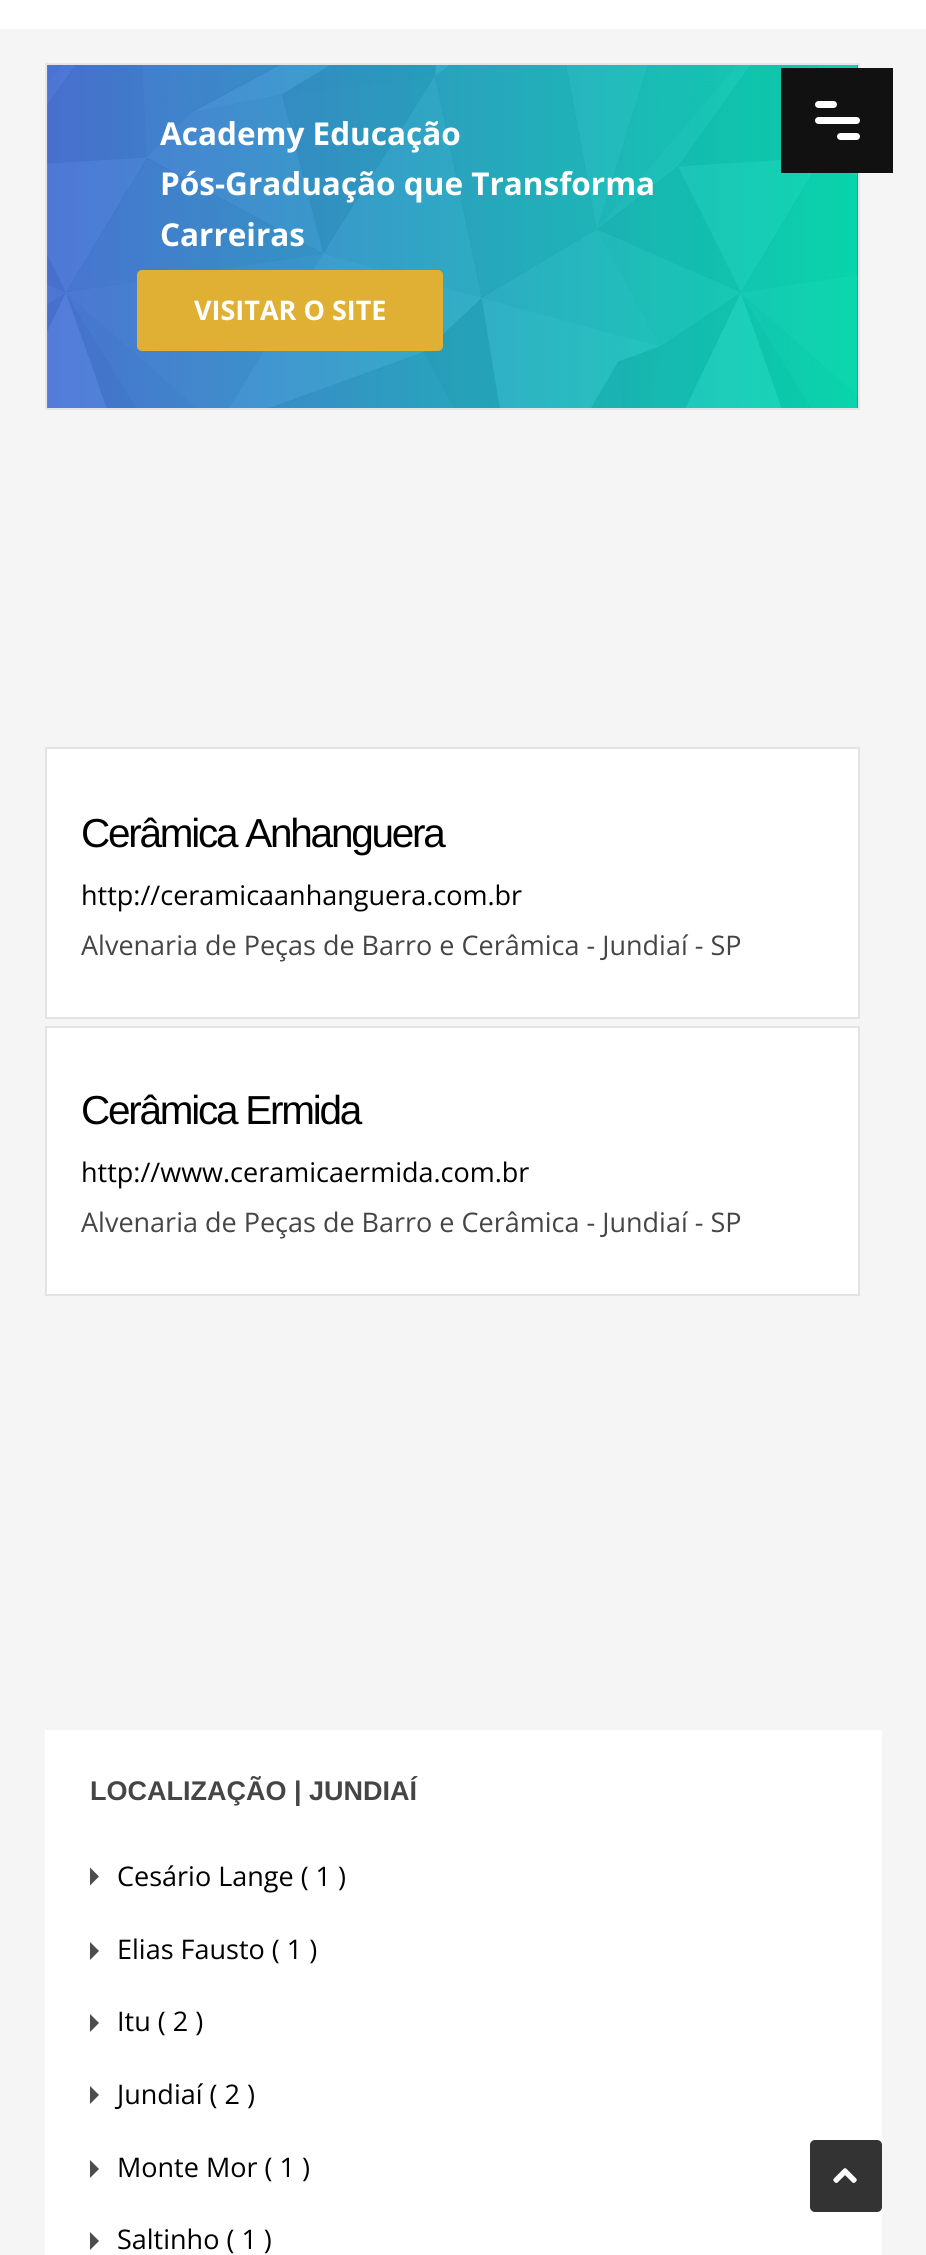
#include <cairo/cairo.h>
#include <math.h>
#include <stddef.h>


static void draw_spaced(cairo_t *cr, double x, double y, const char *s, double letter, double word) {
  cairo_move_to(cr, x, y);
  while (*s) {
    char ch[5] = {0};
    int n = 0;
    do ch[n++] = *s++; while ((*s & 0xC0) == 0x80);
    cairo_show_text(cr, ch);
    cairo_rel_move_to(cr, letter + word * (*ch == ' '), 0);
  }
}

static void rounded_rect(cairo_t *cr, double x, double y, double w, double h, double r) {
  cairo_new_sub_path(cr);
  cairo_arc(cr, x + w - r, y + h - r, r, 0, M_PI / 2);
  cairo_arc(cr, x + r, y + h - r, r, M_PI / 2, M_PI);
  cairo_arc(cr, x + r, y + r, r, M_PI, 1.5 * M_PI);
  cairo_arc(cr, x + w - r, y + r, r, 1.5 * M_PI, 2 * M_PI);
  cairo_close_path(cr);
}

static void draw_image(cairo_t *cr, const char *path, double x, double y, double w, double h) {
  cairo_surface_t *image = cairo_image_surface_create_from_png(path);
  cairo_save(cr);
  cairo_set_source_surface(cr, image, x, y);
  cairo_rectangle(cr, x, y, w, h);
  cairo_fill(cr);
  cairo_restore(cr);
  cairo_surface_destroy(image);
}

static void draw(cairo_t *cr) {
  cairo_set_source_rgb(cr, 245 / 255.0, 245 / 255.0, 245 / 255.0);
  cairo_paint(cr);
  cairo_set_source_rgb(cr, 1, 1, 1);
  cairo_rectangle(cr, 0, 0, 926, 29);
  cairo_fill(cr);
  draw_image(cr, "images/1.png", 47, 65, 811, 343);
  cairo_rectangle(cr, 46, 64, 813, 345);
  cairo_set_source_rgb(cr, 230 / 255.0, 230 / 255.0, 230 / 255.0);
  cairo_stroke(cr);
  cairo_set_source_rgb(cr, 224 / 255.0, 176 / 255.0, 52 / 255.0);
  rounded_rect(cr, 137, 270, 306, 81, 5);
  cairo_fill(cr);
  cairo_set_source_rgb(cr, 1, 1, 1);
  cairo_rectangle(cr, 46, 748, 813, 270);
  cairo_fill_preserve(cr);
  cairo_set_source_rgb(cr, 227 / 255.0, 227 / 255.0, 227 / 255.0);
  cairo_stroke(cr);
  cairo_set_source_rgb(cr, 1, 1, 1);
  cairo_rectangle(cr, 46, 1027, 813, 268);
  cairo_fill_preserve(cr);
  cairo_set_source_rgb(cr, 227 / 255.0, 227 / 255.0, 227 / 255.0);
  cairo_stroke(cr);
  cairo_set_source_rgb(cr, 1, 1, 1);
  cairo_rectangle(cr, 45, 1730, 837, 525);
  cairo_fill(cr);
  cairo_set_source_rgb(cr, 77 / 255.0, 77 / 255.0, 77 / 255.0);
  cairo_new_path(cr);
  cairo_move_to(cr, 90, 1885.5);
  cairo_line_to(cr, 90, 1867.5);
  cairo_line_to(cr, 99, 1876.5);
  cairo_close_path(cr);
  cairo_fill(cr);
  cairo_new_path(cr);
  cairo_move_to(cr, 90, 1960);
  cairo_line_to(cr, 90, 1942);
  cairo_line_to(cr, 99, 1951);
  cairo_close_path(cr);
  cairo_fill(cr);
  cairo_new_path(cr);
  cairo_move_to(cr, 90, 2032);
  cairo_line_to(cr, 90, 2014);
  cairo_line_to(cr, 99, 2023);
  cairo_close_path(cr);
  cairo_fill(cr);
  cairo_new_path(cr);
  cairo_move_to(cr, 90, 2104);
  cairo_line_to(cr, 90, 2086);
  cairo_line_to(cr, 99, 2095);
  cairo_close_path(cr);
  cairo_fill(cr);
  cairo_new_path(cr);
  cairo_move_to(cr, 90, 2178);
  cairo_line_to(cr, 90, 2160);
  cairo_line_to(cr, 99, 2169);
  cairo_close_path(cr);
  cairo_fill(cr);
  cairo_new_path(cr);
  cairo_move_to(cr, 90, 2250);
  cairo_line_to(cr, 90, 2232);
  cairo_line_to(cr, 99, 2241);
  cairo_close_path(cr);
  cairo_fill(cr);
  cairo_set_source_rgb(cr, 17 / 255.0, 17 / 255.0, 17 / 255.0);
  cairo_rectangle(cr, 781, 68, 112, 105);
  cairo_fill(cr);
  cairo_set_source_rgb(cr, 1, 1, 1);
  rounded_rect(cr, 815, 101, 22, 7, 3.5);
  cairo_fill(cr);
  rounded_rect(cr, 815, 117, 45, 7, 3.5);
  cairo_fill(cr);
  rounded_rect(cr, 837, 133, 23, 7, 3.5);
  cairo_fill(cr);
  cairo_set_source_rgb(cr, 51 / 255.0, 51 / 255.0, 51 / 255.0);
  rounded_rect(cr, 810, 2140, 72, 72, 5);
  cairo_fill(cr);
  draw_image(cr, "images/2.png", 833, 2168, 24, 15);
  cairo_select_font_face(cr, "Open Sans", CAIRO_FONT_SLANT_NORMAL, CAIRO_FONT_WEIGHT_BOLD);
  cairo_set_font_size(cr, 31.5);
  cairo_set_source_rgb(cr, 1, 1, 1);
  cairo_move_to(cr, 160, 145);
  cairo_show_text(cr, "Academy Educação");
  cairo_move_to(cr, 160, 195);
  cairo_show_text(cr, "Pós-Graduação que Transforma");
  cairo_move_to(cr, 160, 246);
  cairo_show_text(cr, "Carreiras");
  cairo_set_font_size(cr, 27);
  cairo_move_to(cr, 194, 320);
  cairo_show_text(cr, "VISITAR O SITE");
  cairo_select_font_face(cr, "Liberation Sans", CAIRO_FONT_SLANT_NORMAL, CAIRO_FONT_WEIGHT_NORMAL);
  cairo_set_font_size(cr, 40.5);
  cairo_set_source_rgb(cr, 0, 0, 0);
  draw_spaced(cr, 81, 847, "Cerâmica Anhanguera", -2.25, 0);
  cairo_select_font_face(cr, "Open Sans", CAIRO_FONT_SLANT_NORMAL, CAIRO_FONT_WEIGHT_NORMAL);
  cairo_set_font_size(cr, 27);
  cairo_move_to(cr, 81, 905);
  cairo_show_text(cr, "http://ceramicaanhanguera.com.br");
  cairo_set_source_rgb(cr, 69 / 255.0, 69 / 255.0, 69 / 255.0);
  cairo_move_to(cr, 81, 955);
  cairo_show_text(cr, "Alvenaria de Peças de Barro e Cerâmica - Jundiaí - SP");
  cairo_select_font_face(cr, "Liberation Sans", CAIRO_FONT_SLANT_NORMAL, CAIRO_FONT_WEIGHT_NORMAL);
  cairo_set_font_size(cr, 40.5);
  cairo_set_source_rgb(cr, 0, 0, 0);
  draw_spaced(cr, 81, 1124, "Cerâmica Ermida", -2.25, 0);
  cairo_select_font_face(cr, "Open Sans", CAIRO_FONT_SLANT_NORMAL, CAIRO_FONT_WEIGHT_NORMAL);
  cairo_set_font_size(cr, 27);
  cairo_move_to(cr, 81, 1182);
  cairo_show_text(cr, "http://www.ceramicaermida.com.br");
  cairo_set_source_rgb(cr, 69 / 255.0, 69 / 255.0, 69 / 255.0);
  cairo_move_to(cr, 81, 1232);
  cairo_show_text(cr, "Alvenaria de Peças de Barro e Cerâmica - Jundiaí - SP");
  cairo_select_font_face(cr, "Liberation Sans", CAIRO_FONT_SLANT_NORMAL, CAIRO_FONT_WEIGHT_BOLD);
  cairo_move_to(cr, 90, 1800);
  cairo_show_text(cr, "LOCALIZAÇÃO | JUNDIAÍ");
  cairo_select_font_face(cr, "Open Sans", CAIRO_FONT_SLANT_NORMAL, CAIRO_FONT_WEIGHT_NORMAL);
  cairo_set_source_rgb(cr, 0, 0, 0);
  cairo_move_to(cr, 117, 1886);
  cairo_show_text(cr, "Cesário Lange ( 1 )");
  cairo_move_to(cr, 117, 1959);
  cairo_show_text(cr, "Elias Fausto ( 1 )");
  cairo_move_to(cr, 117, 2031);
  cairo_show_text(cr, "Itu ( 2 )");
  cairo_move_to(cr, 117, 2104);
  cairo_show_text(cr, "Jundiaí ( 2 )");
  cairo_move_to(cr, 117, 2177);
  cairo_show_text(cr, "Monte Mor ( 1 )");
  cairo_move_to(cr, 117, 2249);
  cairo_show_text(cr, "Saltinho ( 1 )");
}

int main(void) {
  cairo_surface_t *surface = cairo_image_surface_create(CAIRO_FORMAT_RGB24, 926, 2255);
  cairo_t *cr = cairo_create(surface);
  cairo_font_options_t *options = cairo_font_options_create();
  cairo_font_options_set_hint_metrics(options, CAIRO_HINT_METRICS_OFF);
  cairo_font_options_set_hint_style(options, CAIRO_HINT_STYLE_NONE);
  cairo_set_font_options(cr, options);
  cairo_set_miter_limit(cr, 4);
  draw(cr);
  cairo_surface_write_to_png(surface, "out.png");
  cairo_font_options_destroy(options);
  cairo_destroy(cr);
  cairo_surface_destroy(surface);
  return 0;
}
